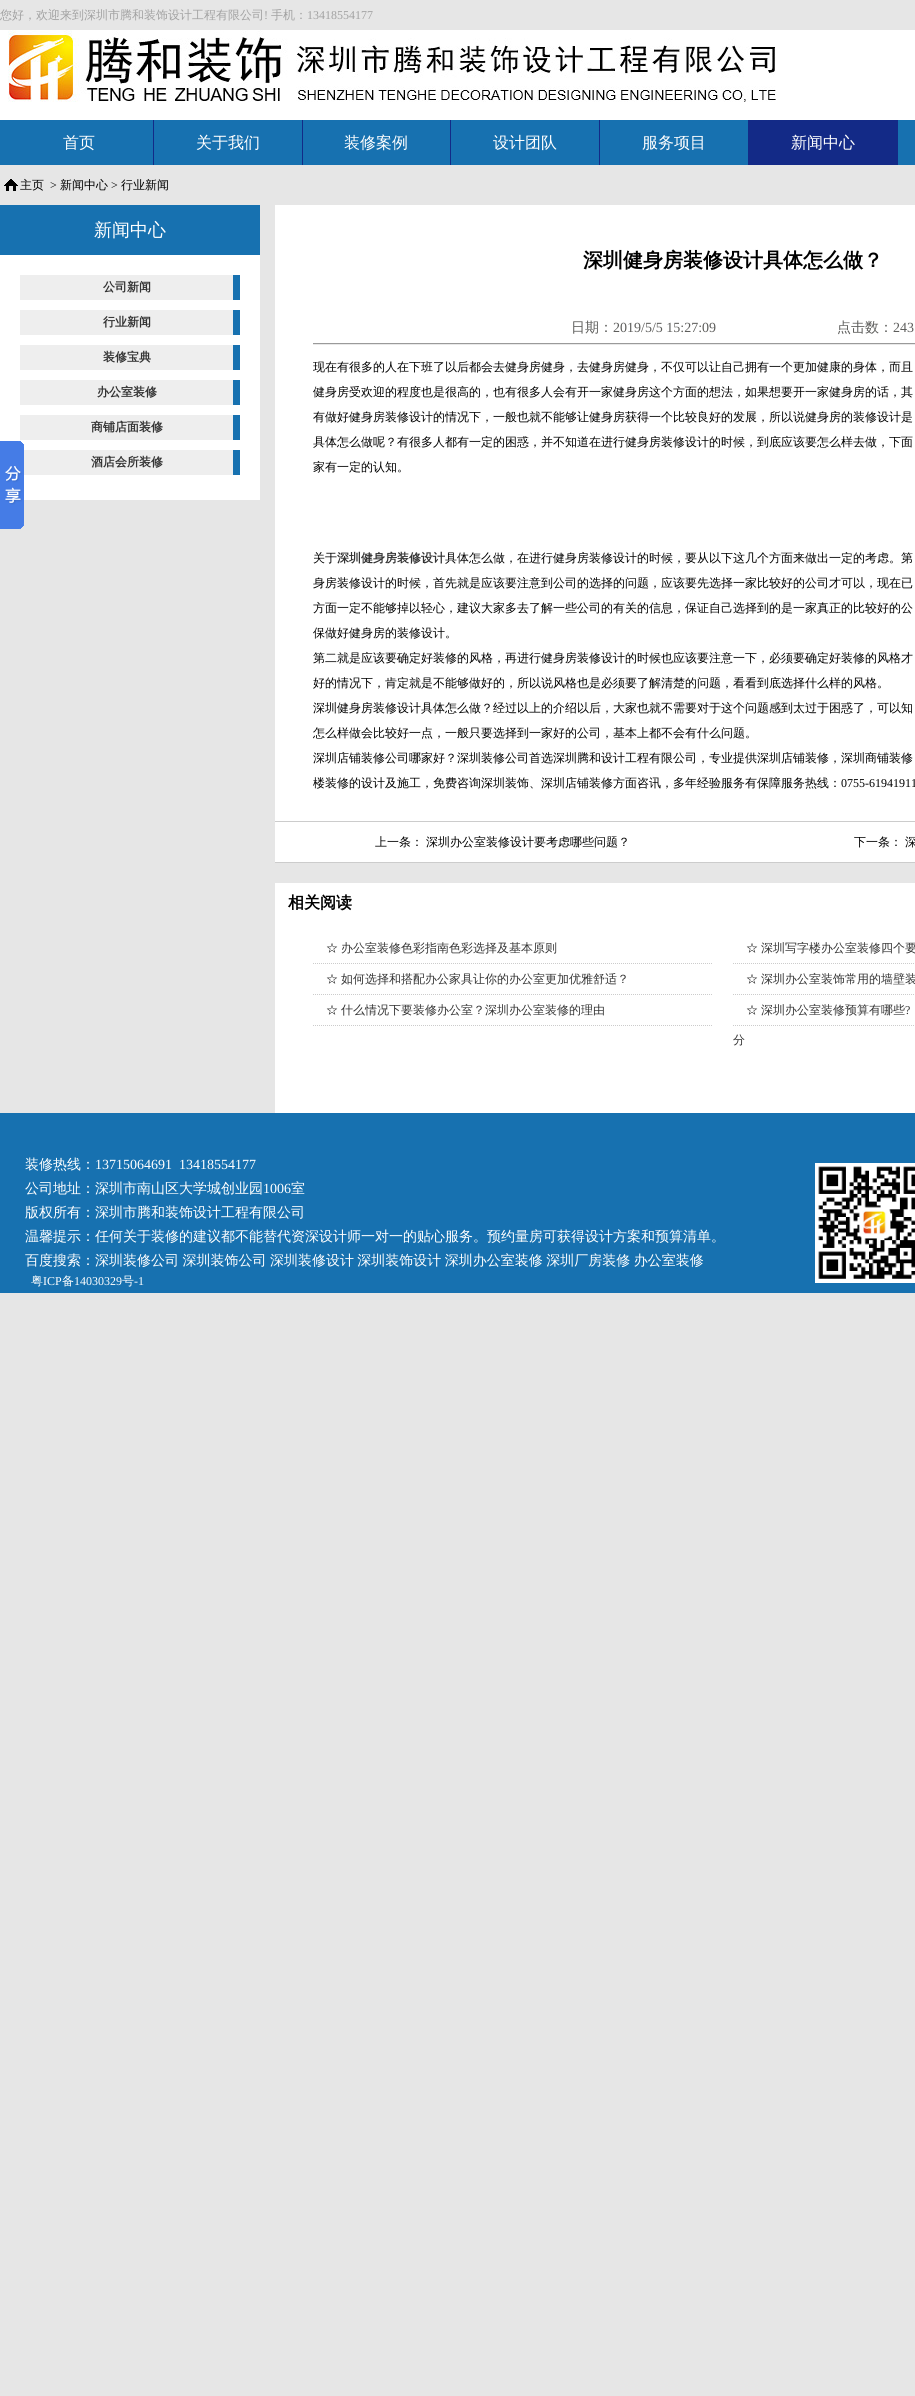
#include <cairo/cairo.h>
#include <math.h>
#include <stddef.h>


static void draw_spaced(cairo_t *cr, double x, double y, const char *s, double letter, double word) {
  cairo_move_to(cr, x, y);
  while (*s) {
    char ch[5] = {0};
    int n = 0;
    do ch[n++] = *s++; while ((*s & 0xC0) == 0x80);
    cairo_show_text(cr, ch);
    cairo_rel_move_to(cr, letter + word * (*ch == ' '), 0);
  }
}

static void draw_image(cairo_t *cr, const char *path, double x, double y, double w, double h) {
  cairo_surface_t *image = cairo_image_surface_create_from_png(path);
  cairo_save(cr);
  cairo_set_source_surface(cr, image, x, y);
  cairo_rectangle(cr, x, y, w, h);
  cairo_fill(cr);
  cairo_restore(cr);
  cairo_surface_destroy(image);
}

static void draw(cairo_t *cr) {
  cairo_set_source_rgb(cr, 230 / 255.0, 230 / 255.0, 230 / 255.0);
  cairo_paint(cr);
  cairo_set_source_rgb(cr, 1, 1, 1);
  cairo_rectangle(cr, 0, 30, 915, 90);
  cairo_fill(cr);
  draw_image(cr, "images/1.png", 8, 30, 768, 72);
  cairo_set_source_rgb(cr, 23 / 255.0, 113 / 255.0, 176 / 255.0);
  cairo_rectangle(cr, 0, 120, 153, 45);
  cairo_fill(cr);
  cairo_set_source_rgb(cr, 19 / 255.0, 42 / 255.0, 135 / 255.0);
  cairo_rectangle(cr, 153, 120, 745, 45);
  cairo_fill(cr);
  cairo_set_source_rgb(cr, 23 / 255.0, 113 / 255.0, 176 / 255.0);
  cairo_rectangle(cr, 154, 120, 148, 45);
  cairo_fill(cr);
  cairo_rectangle(cr, 303, 120, 147, 45);
  cairo_fill(cr);
  cairo_rectangle(cr, 451, 120, 148, 45);
  cairo_fill(cr);
  cairo_rectangle(cr, 600, 120, 148, 45);
  cairo_fill(cr);
  cairo_rectangle(cr, 898, 120, 17, 45);
  cairo_fill(cr);
  draw_image(cr, "images/2.png", 4, 179, 14, 12);
  cairo_set_source_rgb(cr, 1, 1, 1);
  cairo_rectangle(cr, 0, 255, 260, 245);
  cairo_fill(cr);
  draw_image(cr, "images/3.png", 0, 441, 24, 88);
  cairo_set_source_rgb(cr, 23 / 255.0, 113 / 255.0, 176 / 255.0);
  cairo_rectangle(cr, 0, 205, 260, 50);
  cairo_fill(cr);
  cairo_set_source_rgb(cr, 238 / 255.0, 238 / 255.0, 238 / 255.0);
  cairo_rectangle(cr, 20, 275, 213, 25);
  cairo_fill(cr);
  cairo_set_source_rgb(cr, 23 / 255.0, 113 / 255.0, 176 / 255.0);
  cairo_rectangle(cr, 233, 275, 7, 25);
  cairo_fill(cr);
  cairo_set_source_rgb(cr, 238 / 255.0, 238 / 255.0, 238 / 255.0);
  cairo_rectangle(cr, 20, 310, 213, 25);
  cairo_fill(cr);
  cairo_set_source_rgb(cr, 23 / 255.0, 113 / 255.0, 176 / 255.0);
  cairo_rectangle(cr, 233, 310, 7, 25);
  cairo_fill(cr);
  cairo_set_source_rgb(cr, 238 / 255.0, 238 / 255.0, 238 / 255.0);
  cairo_rectangle(cr, 20, 345, 213, 25);
  cairo_fill(cr);
  cairo_set_source_rgb(cr, 23 / 255.0, 113 / 255.0, 176 / 255.0);
  cairo_rectangle(cr, 233, 345, 7, 25);
  cairo_fill(cr);
  cairo_set_source_rgb(cr, 238 / 255.0, 238 / 255.0, 238 / 255.0);
  cairo_rectangle(cr, 20, 380, 213, 25);
  cairo_fill(cr);
  cairo_set_source_rgb(cr, 23 / 255.0, 113 / 255.0, 176 / 255.0);
  cairo_rectangle(cr, 233, 380, 7, 25);
  cairo_fill(cr);
  cairo_set_source_rgb(cr, 238 / 255.0, 238 / 255.0, 238 / 255.0);
  cairo_rectangle(cr, 20, 415, 213, 25);
  cairo_fill(cr);
  cairo_set_source_rgb(cr, 23 / 255.0, 113 / 255.0, 176 / 255.0);
  cairo_rectangle(cr, 233, 415, 7, 25);
  cairo_fill(cr);
  cairo_set_source_rgb(cr, 238 / 255.0, 238 / 255.0, 238 / 255.0);
  cairo_rectangle(cr, 24, 450, 209, 25);
  cairo_fill(cr);
  cairo_set_source_rgb(cr, 23 / 255.0, 113 / 255.0, 176 / 255.0);
  cairo_rectangle(cr, 233, 450, 7, 25);
  cairo_fill(cr);
  cairo_set_source_rgb(cr, 1, 1, 1);
  cairo_rectangle(cr, 275, 205, 640, 908);
  cairo_fill(cr);
  draw_image(cr, "images/4.png", 313, 343, 602, 2);
  cairo_set_source_rgb(cr, 204 / 255.0, 204 / 255.0, 204 / 255.0);
  cairo_rectangle(cr, 275, 821, 640, 1);
  cairo_fill(cr);
  cairo_rectangle(cr, 275, 862, 640, 1);
  cairo_fill(cr);
  cairo_set_source_rgb(cr, 230 / 255.0, 230 / 255.0, 230 / 255.0);
  cairo_rectangle(cr, 275, 863, 640, 20);
  cairo_fill(cr);
  cairo_new_path(cr);
  cairo_move_to(cr, 313, 963.5);
  cairo_line_to(cr, 713, 963.5);
  cairo_set_source_rgb(cr, 204 / 255.0, 204 / 255.0, 204 / 255.0);
  cairo_set_line_width(cr, 1);
  cairo_set_dash(cr, (double[]){1, 1}, 2, 0);
  cairo_stroke(cr);
  cairo_new_path(cr);
  cairo_move_to(cr, 733, 963.5);
  cairo_line_to(cr, 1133, 963.5);
  cairo_stroke(cr);
  cairo_new_path(cr);
  cairo_move_to(cr, 313, 994.5);
  cairo_line_to(cr, 713, 994.5);
  cairo_stroke(cr);
  cairo_new_path(cr);
  cairo_move_to(cr, 733, 994.5);
  cairo_line_to(cr, 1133, 994.5);
  cairo_stroke(cr);
  cairo_new_path(cr);
  cairo_move_to(cr, 313, 1025.5);
  cairo_line_to(cr, 713, 1025.5);
  cairo_stroke(cr);
  cairo_new_path(cr);
  cairo_move_to(cr, 733, 1025.5);
  cairo_line_to(cr, 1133, 1025.5);
  cairo_stroke(cr);
  cairo_set_source_rgb(cr, 23 / 255.0, 113 / 255.0, 176 / 255.0);
  cairo_rectangle(cr, 0, 1113, 915, 180);
  cairo_fill(cr);
  draw_image(cr, "images/5.png", 815, 1163, 100, 120);
  cairo_select_font_face(cr, "WenQuanYi Zen Hei Medium", CAIRO_FONT_SLANT_NORMAL, CAIRO_FONT_WEIGHT_NORMAL);
  cairo_set_font_size(cr, 12);
  cairo_set_source_rgb(cr, 162 / 255.0, 162 / 255.0, 162 / 255.0);
  cairo_move_to(cr, 0, 19);
  cairo_show_text(cr, "您好，欢迎来到深圳市腾和装饰设计工程有限公司");
  cairo_select_font_face(cr, "Liberation Serif", CAIRO_FONT_SLANT_NORMAL, CAIRO_FONT_WEIGHT_NORMAL);
  cairo_move_to(cr, 264, 19);
  cairo_show_text(cr, "!");
  cairo_select_font_face(cr, "WenQuanYi Zen Hei Medium", CAIRO_FONT_SLANT_NORMAL, CAIRO_FONT_WEIGHT_NORMAL);
  cairo_move_to(cr, 271, 19);
  cairo_show_text(cr, "手机：");
  cairo_select_font_face(cr, "Liberation Serif", CAIRO_FONT_SLANT_NORMAL, CAIRO_FONT_WEIGHT_NORMAL);
  cairo_move_to(cr, 307, 19);
  cairo_show_text(cr, "13418554177");
  cairo_select_font_face(cr, "WenQuanYi Zen Hei Medium", CAIRO_FONT_SLANT_NORMAL, CAIRO_FONT_WEIGHT_NORMAL);
  cairo_set_font_size(cr, 16);
  cairo_set_source_rgb(cr, 1, 1, 1);
  cairo_move_to(cr, 63, 148);
  cairo_show_text(cr, "首页");
  cairo_move_to(cr, 196, 148);
  cairo_show_text(cr, "关于我们");
  cairo_move_to(cr, 344, 148);
  cairo_show_text(cr, "装修案例");
  cairo_move_to(cr, 493, 148);
  cairo_show_text(cr, "设计团队");
  cairo_move_to(cr, 642, 148);
  cairo_show_text(cr, "服务项目");
  cairo_move_to(cr, 791, 148);
  cairo_show_text(cr, "新闻中心");
  cairo_set_font_size(cr, 12);
  cairo_set_source_rgb(cr, 0, 0, 0);
  cairo_move_to(cr, 20, 189);
  cairo_show_text(cr, "主页");
  cairo_select_font_face(cr, "Liberation Serif", CAIRO_FONT_SLANT_NORMAL, CAIRO_FONT_WEIGHT_NORMAL);
  cairo_move_to(cr, 50, 189);
  cairo_show_text(cr, ">");
  cairo_select_font_face(cr, "WenQuanYi Zen Hei Medium", CAIRO_FONT_SLANT_NORMAL, CAIRO_FONT_WEIGHT_NORMAL);
  cairo_move_to(cr, 60, 189);
  cairo_show_text(cr, "新闻中心");
  cairo_select_font_face(cr, "Liberation Serif", CAIRO_FONT_SLANT_NORMAL, CAIRO_FONT_WEIGHT_NORMAL);
  cairo_move_to(cr, 111, 189);
  cairo_show_text(cr, ">");
  cairo_select_font_face(cr, "WenQuanYi Zen Hei Medium", CAIRO_FONT_SLANT_NORMAL, CAIRO_FONT_WEIGHT_NORMAL);
  cairo_move_to(cr, 121, 189);
  cairo_show_text(cr, "行业新闻");
  cairo_set_font_size(cr, 18);
  cairo_set_source_rgb(cr, 1, 1, 1);
  cairo_move_to(cr, 94, 236);
  cairo_show_text(cr, "新闻中心");
  cairo_select_font_face(cr, "WenQuanYi Zen Hei", CAIRO_FONT_SLANT_NORMAL, CAIRO_FONT_WEIGHT_BOLD);
  cairo_set_font_size(cr, 12);
  cairo_set_source_rgb(cr, 51 / 255.0, 51 / 255.0, 51 / 255.0);
  cairo_move_to(cr, 103, 291);
  cairo_show_text(cr, "公司新闻");
  cairo_move_to(cr, 103, 326);
  cairo_show_text(cr, "行业新闻");
  cairo_move_to(cr, 103, 361);
  cairo_show_text(cr, "装修宝典");
  cairo_move_to(cr, 97, 396);
  cairo_show_text(cr, "办公室装修");
  cairo_move_to(cr, 91, 431);
  cairo_show_text(cr, "商铺店面装修");
  cairo_move_to(cr, 91, 466);
  cairo_show_text(cr, "酒店会所装修");
  cairo_set_font_size(cr, 20);
  cairo_set_source_rgb(cr, 0, 0, 0);
  cairo_move_to(cr, 583, 267);
  cairo_show_text(cr, "深圳健身房装修设计具体怎么做？");
  cairo_select_font_face(cr, "WenQuanYi Zen Hei Medium", CAIRO_FONT_SLANT_NORMAL, CAIRO_FONT_WEIGHT_NORMAL);
  cairo_set_font_size(cr, 14);
  cairo_set_source_rgb(cr, 93 / 255.0, 93 / 255.0, 91 / 255.0);
  cairo_move_to(cr, 571, 332);
  cairo_show_text(cr, "日期：");
  cairo_select_font_face(cr, "Liberation Serif", CAIRO_FONT_SLANT_NORMAL, CAIRO_FONT_WEIGHT_NORMAL);
  cairo_move_to(cr, 613, 332);
  cairo_show_text(cr, "2019/5/5 15:27:09");
  cairo_select_font_face(cr, "WenQuanYi Zen Hei Medium", CAIRO_FONT_SLANT_NORMAL, CAIRO_FONT_WEIGHT_NORMAL);
  cairo_move_to(cr, 837, 332);
  cairo_show_text(cr, "点击数：");
  cairo_select_font_face(cr, "Liberation Serif", CAIRO_FONT_SLANT_NORMAL, CAIRO_FONT_WEIGHT_NORMAL);
  cairo_move_to(cr, 893, 332);
  cairo_show_text(cr, "243");
  cairo_select_font_face(cr, "WenQuanYi Zen Hei Medium", CAIRO_FONT_SLANT_NORMAL, CAIRO_FONT_WEIGHT_NORMAL);
  cairo_set_font_size(cr, 12);
  cairo_set_source_rgb(cr, 0, 0, 0);
  cairo_move_to(cr, 313, 371);
  cairo_show_text(cr, "现在有很多的人在下班了以后都会去健身房健身，去健身房健身，不仅可以让自己拥有一个更加健康的身体，而且");
  cairo_move_to(cr, 313, 396);
  cairo_show_text(cr, "健身房受欢迎的程度也是很高的，也有很多人会有开一家健身房这个方面的想法，如果想要开一家健身房的话，其");
  cairo_move_to(cr, 313, 421);
  cairo_show_text(cr, "有做好健身房装修设计的情况下，一般也就不能够让健身房获得一个比较良好的发展，所以说健身房的装修设计是");
  cairo_move_to(cr, 313, 446);
  cairo_show_text(cr, "具体怎么做呢？有很多人都有一定的困惑，并不知道在进行健身房装修设计的时候，到底应该要怎么样去做，下面");
  cairo_move_to(cr, 313, 471);
  cairo_show_text(cr, "家有一定的认知。");
  cairo_move_to(cr, 313, 562);
  cairo_show_text(cr, "关于");
  cairo_select_font_face(cr, "WenQuanYi Zen Hei", CAIRO_FONT_SLANT_NORMAL, CAIRO_FONT_WEIGHT_BOLD);
  cairo_set_source_rgb(cr, 51 / 255.0, 51 / 255.0, 51 / 255.0);
  cairo_move_to(cr, 337, 562);
  cairo_show_text(cr, "深圳健身房装修设计");
  cairo_select_font_face(cr, "WenQuanYi Zen Hei Medium", CAIRO_FONT_SLANT_NORMAL, CAIRO_FONT_WEIGHT_NORMAL);
  cairo_set_source_rgb(cr, 0, 0, 0);
  cairo_move_to(cr, 445, 562);
  cairo_show_text(cr, "具体怎么做，在进行健身房装修设计的时候，要从以下这几个方面来做出一定的考虑。第");
  cairo_move_to(cr, 313, 587);
  cairo_show_text(cr, "身房装修设计的时候，首先就是应该要注意到公司的选择的问题，应该要先选择一家比较好的公司才可以，现在已");
  cairo_move_to(cr, 313, 612);
  cairo_show_text(cr, "方面一定不能够掉以轻心，建议大家多去了解一些公司的有关的信息，保证自己选择到的是一家真正的比较好的公");
  cairo_move_to(cr, 313, 637);
  cairo_show_text(cr, "保做好健身房的装修设计。");
  cairo_move_to(cr, 313, 662);
  cairo_show_text(cr, "第二就是应该要确定好装修的风格，再进行健身房装修设计的时候也应该要注意一下，必须要确定好装修的风格才");
  cairo_move_to(cr, 313, 687);
  cairo_show_text(cr, "好的情况下，肯定就是不能够做好的，所以说风格也是必须要了解清楚的问题，看看到底选择什么样的风格。");
  cairo_move_to(cr, 313, 712);
  cairo_show_text(cr, "深圳健身房装修设计具体怎么做？经过以上的介绍以后，大家也就不需要对于这个问题感到太过于困惑了，可以知");
  cairo_move_to(cr, 313, 737);
  cairo_show_text(cr, "怎么样做会比较好一点，一般只要选择到一家好的公司，基本上都不会有什么问题。");
  cairo_move_to(cr, 313, 762);
  cairo_show_text(cr, "深圳店铺装修公司哪家好？深圳装修公司首选深圳腾和设计工程有限公司，专业提供深圳店铺装修，深圳商铺装修");
  cairo_move_to(cr, 313, 787);
  cairo_show_text(cr, "楼装修的设计及施工，免费咨询深圳装饰、深圳店铺装修方面咨讯，多年经验服务有保障服务热线：");
  cairo_select_font_face(cr, "Liberation Serif", CAIRO_FONT_SLANT_NORMAL, CAIRO_FONT_WEIGHT_NORMAL);
  cairo_move_to(cr, 841, 787);
  cairo_show_text(cr, "0755-61941911");
  cairo_select_font_face(cr, "WenQuanYi Zen Hei Medium", CAIRO_FONT_SLANT_NORMAL, CAIRO_FONT_WEIGHT_NORMAL);
  cairo_move_to(cr, 375, 846);
  cairo_show_text(cr, "上一条：");
  cairo_move_to(cr, 426, 846);
  cairo_show_text(cr, "深圳办公室装修设计要考虑哪些问题？");
  cairo_move_to(cr, 854, 846);
  cairo_show_text(cr, "下一条：");
  cairo_move_to(cr, 905, 846);
  cairo_show_text(cr, "深");
  cairo_select_font_face(cr, "WenQuanYi Zen Hei", CAIRO_FONT_SLANT_NORMAL, CAIRO_FONT_WEIGHT_BOLD);
  cairo_set_font_size(cr, 16);
  cairo_move_to(cr, 288, 908);
  cairo_show_text(cr, "相关阅读");
  cairo_select_font_face(cr, "WenQuanYi Zen Hei Medium", CAIRO_FONT_SLANT_NORMAL, CAIRO_FONT_WEIGHT_NORMAL);
  cairo_set_font_size(cr, 12);
  cairo_move_to(cr, 326, 952);
  cairo_show_text(cr, "☆");
  cairo_set_source_rgb(cr, 51 / 255.0, 51 / 255.0, 51 / 255.0);
  cairo_move_to(cr, 341, 952);
  cairo_show_text(cr, "办公室装修色彩指南色彩选择及基本原则");
  cairo_set_source_rgb(cr, 0, 0, 0);
  cairo_move_to(cr, 746, 952);
  cairo_show_text(cr, "☆");
  cairo_set_source_rgb(cr, 51 / 255.0, 51 / 255.0, 51 / 255.0);
  cairo_move_to(cr, 761, 952);
  cairo_show_text(cr, "深圳写字楼办公室装修四个要");
  cairo_set_source_rgb(cr, 0, 0, 0);
  cairo_move_to(cr, 326, 983);
  cairo_show_text(cr, "☆");
  cairo_set_source_rgb(cr, 51 / 255.0, 51 / 255.0, 51 / 255.0);
  cairo_move_to(cr, 341, 983);
  cairo_show_text(cr, "如何选择和搭配办公家具让你的办公室更加优雅舒适？");
  cairo_set_source_rgb(cr, 0, 0, 0);
  cairo_move_to(cr, 746, 983);
  cairo_show_text(cr, "☆");
  cairo_set_source_rgb(cr, 51 / 255.0, 51 / 255.0, 51 / 255.0);
  cairo_move_to(cr, 761, 983);
  cairo_show_text(cr, "深圳办公室装饰常用的墙壁装");
  cairo_set_source_rgb(cr, 0, 0, 0);
  cairo_move_to(cr, 326, 1014);
  cairo_show_text(cr, "☆");
  cairo_set_source_rgb(cr, 51 / 255.0, 51 / 255.0, 51 / 255.0);
  cairo_move_to(cr, 341, 1014);
  cairo_show_text(cr, "什么情况下要装修办公室？深圳办公室装修的理由");
  cairo_set_source_rgb(cr, 0, 0, 0);
  cairo_move_to(cr, 746, 1014);
  cairo_show_text(cr, "☆");
  cairo_set_source_rgb(cr, 51 / 255.0, 51 / 255.0, 51 / 255.0);
  cairo_move_to(cr, 761, 1014);
  cairo_show_text(cr, "深圳办公室装修预算有哪些");
  cairo_select_font_face(cr, "Liberation Serif", CAIRO_FONT_SLANT_NORMAL, CAIRO_FONT_WEIGHT_NORMAL);
  cairo_move_to(cr, 905, 1014);
  cairo_show_text(cr, "?");
  cairo_select_font_face(cr, "WenQuanYi Zen Hei Medium", CAIRO_FONT_SLANT_NORMAL, CAIRO_FONT_WEIGHT_NORMAL);
  cairo_move_to(cr, 733, 1044);
  cairo_show_text(cr, "分");
  cairo_set_font_size(cr, 14);
  cairo_set_source_rgb(cr, 1, 1, 1);
  cairo_move_to(cr, 25, 1169);
  cairo_show_text(cr, "装修热线：");
  cairo_select_font_face(cr, "Liberation Serif", CAIRO_FONT_SLANT_NORMAL, CAIRO_FONT_WEIGHT_NORMAL);
  cairo_move_to(cr, 95, 1169);
  cairo_show_text(cr, "13715064691  13418554177");
  cairo_select_font_face(cr, "WenQuanYi Zen Hei Medium", CAIRO_FONT_SLANT_NORMAL, CAIRO_FONT_WEIGHT_NORMAL);
  cairo_move_to(cr, 25, 1193);
  cairo_show_text(cr, "公司地址：深圳市南山区大学城创业园");
  cairo_select_font_face(cr, "Liberation Serif", CAIRO_FONT_SLANT_NORMAL, CAIRO_FONT_WEIGHT_NORMAL);
  cairo_move_to(cr, 263, 1193);
  cairo_show_text(cr, "1006");
  cairo_select_font_face(cr, "WenQuanYi Zen Hei Medium", CAIRO_FONT_SLANT_NORMAL, CAIRO_FONT_WEIGHT_NORMAL);
  cairo_move_to(cr, 291, 1193);
  cairo_show_text(cr, "室");
  cairo_move_to(cr, 25, 1217);
  cairo_show_text(cr, "版权所有：深圳市腾和装饰设计工程有限公司");
  cairo_move_to(cr, 25, 1241);
  cairo_show_text(cr, "温馨提示：任何关于装修的建议都不能替代资深设计师一对一的贴心服务。预约量房可获得设计方案和预算清单。");
  draw_spaced(cr, 25, 1265, "百度搜索：深圳装修公司 深圳装饰公司 深圳装修设计 深圳装饰设计 深圳办公室装修 深圳厂房装修 办公室装修", 0, -0.75);
  cairo_set_font_size(cr, 12);
  cairo_move_to(cr, 31, 1285);
  cairo_show_text(cr, "粤");
  cairo_select_font_face(cr, "Liberation Serif", CAIRO_FONT_SLANT_NORMAL, CAIRO_FONT_WEIGHT_NORMAL);
  cairo_move_to(cr, 43, 1285);
  cairo_show_text(cr, "ICP");
  cairo_select_font_face(cr, "WenQuanYi Zen Hei Medium", CAIRO_FONT_SLANT_NORMAL, CAIRO_FONT_WEIGHT_NORMAL);
  cairo_move_to(cr, 62, 1285);
  cairo_show_text(cr, "备");
  cairo_select_font_face(cr, "Liberation Serif", CAIRO_FONT_SLANT_NORMAL, CAIRO_FONT_WEIGHT_NORMAL);
  cairo_move_to(cr, 74, 1285);
  cairo_show_text(cr, "14030329");
  cairo_select_font_face(cr, "WenQuanYi Zen Hei Medium", CAIRO_FONT_SLANT_NORMAL, CAIRO_FONT_WEIGHT_NORMAL);
  cairo_move_to(cr, 122, 1285);
  cairo_show_text(cr, "号");
  cairo_select_font_face(cr, "Liberation Serif", CAIRO_FONT_SLANT_NORMAL, CAIRO_FONT_WEIGHT_NORMAL);
  cairo_move_to(cr, 134, 1285);
  cairo_show_text(cr, "-1");
}

int main(void) {
  cairo_surface_t *surface = cairo_image_surface_create(CAIRO_FORMAT_RGB24, 915, 2396);
  cairo_t *cr = cairo_create(surface);
  cairo_font_options_t *options = cairo_font_options_create();
  cairo_font_options_set_hint_metrics(options, CAIRO_HINT_METRICS_OFF);
  cairo_font_options_set_hint_style(options, CAIRO_HINT_STYLE_NONE);
  cairo_set_font_options(cr, options);
  cairo_set_miter_limit(cr, 4);
  draw(cr);
  cairo_surface_write_to_png(surface, "out.png");
  cairo_font_options_destroy(options);
  cairo_destroy(cr);
  cairo_surface_destroy(surface);
  return 0;
}
